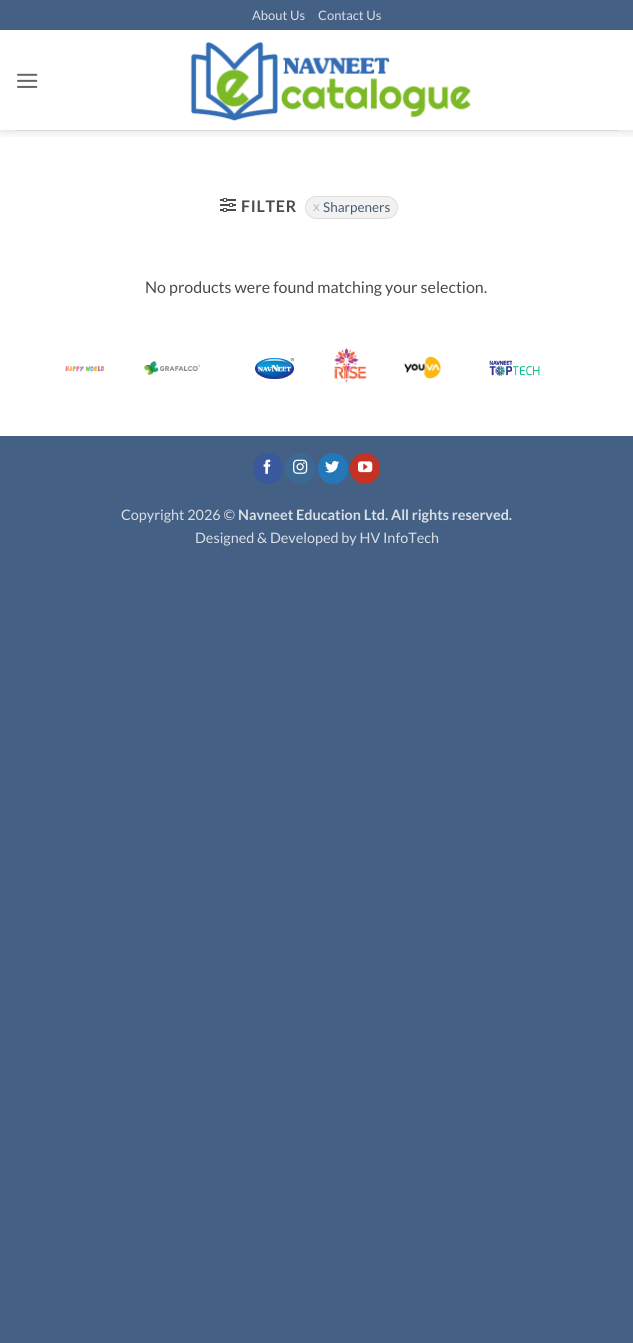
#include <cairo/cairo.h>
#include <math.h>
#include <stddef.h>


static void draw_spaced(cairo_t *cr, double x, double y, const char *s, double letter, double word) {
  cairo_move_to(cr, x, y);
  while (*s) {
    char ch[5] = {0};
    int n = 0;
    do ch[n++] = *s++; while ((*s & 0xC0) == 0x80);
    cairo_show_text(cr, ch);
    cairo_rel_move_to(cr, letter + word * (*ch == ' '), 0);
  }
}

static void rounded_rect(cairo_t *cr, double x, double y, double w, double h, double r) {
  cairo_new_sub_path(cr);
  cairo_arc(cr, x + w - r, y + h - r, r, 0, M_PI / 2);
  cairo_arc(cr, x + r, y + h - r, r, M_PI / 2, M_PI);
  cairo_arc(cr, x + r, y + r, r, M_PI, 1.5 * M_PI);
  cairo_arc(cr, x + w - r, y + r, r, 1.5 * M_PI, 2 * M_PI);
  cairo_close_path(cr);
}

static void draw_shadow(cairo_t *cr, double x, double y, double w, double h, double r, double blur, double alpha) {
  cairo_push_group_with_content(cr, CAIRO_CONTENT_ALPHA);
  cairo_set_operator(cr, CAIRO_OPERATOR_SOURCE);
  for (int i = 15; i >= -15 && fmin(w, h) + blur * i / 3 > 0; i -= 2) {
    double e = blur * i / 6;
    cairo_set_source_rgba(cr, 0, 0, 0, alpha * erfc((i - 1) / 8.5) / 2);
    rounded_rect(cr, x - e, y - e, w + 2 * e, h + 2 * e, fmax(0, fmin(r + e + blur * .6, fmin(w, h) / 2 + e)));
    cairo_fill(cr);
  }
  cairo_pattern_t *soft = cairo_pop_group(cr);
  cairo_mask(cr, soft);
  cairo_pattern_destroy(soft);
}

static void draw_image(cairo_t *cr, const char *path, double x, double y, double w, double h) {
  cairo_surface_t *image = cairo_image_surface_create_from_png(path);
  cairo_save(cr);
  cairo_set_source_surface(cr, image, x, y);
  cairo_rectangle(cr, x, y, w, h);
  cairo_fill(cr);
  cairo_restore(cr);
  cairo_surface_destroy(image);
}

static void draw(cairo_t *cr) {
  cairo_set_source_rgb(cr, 68 / 255.0, 96 / 255.0, 132 / 255.0);
  cairo_paint(cr);
  cairo_set_source_rgb(cr, 1, 1, 1);
  cairo_rectangle(cr, 0, 30, 633, 406);
  cairo_fill(cr);
  cairo_save(cr);
  cairo_rectangle(cr, 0, 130, 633, 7);
  cairo_clip(cr);
  cairo_set_source_rgb(cr, 0, 0, 0);
  draw_shadow(cr, 1, 1, 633, 130, 0, 5, 0.15);
  cairo_restore(cr);
  draw_image(cr, "images/1.png", 17, 73, 21, 15);
  draw_image(cr, "images/2.png", 190, 41, 281, 80);
  cairo_set_source_rgb(cr, 218 / 255.0, 218 / 255.0, 218 / 255.0);
  cairo_rectangle(cr, 15, 130, 603, 1);
  cairo_fill(cr);
  draw_image(cr, "images/3.png", 220, 198, 16, 14);
  cairo_set_source_rgb(cr, 242 / 255.0, 242 / 255.0, 242 / 255.0);
  rounded_rect(cr, 305, 196, 93, 23, 11.5);
  cairo_fill(cr);
  rounded_rect(cr, 305.5, 196.5, 92, 22, 11);
  cairo_set_source_rgba(cr, 26 / 255.0, 26 / 255.0, 26 / 255.0, 0.1);
  cairo_set_line_width(cr, 1);
  cairo_stroke(cr);
  draw_image(cr, "images/4.png", 65, 365, 40, 7);
  draw_image(cr, "images/5.png", 144, 361, 56, 14);
  draw_image(cr, "images/6.png", 255, 358, 39, 21);
  draw_image(cr, "images/7.png", 334, 348, 33, 35);
  draw_image(cr, "images/8.png", 404, 356, 38, 23);
  draw_image(cr, "images/9.png", 489, 360, 51, 16);
  cairo_set_source_rgb(cr, 58 / 255.0, 88 / 255.0, 157 / 255.0);
  rounded_rect(cr, 253.5, 453.5, 29, 30, 14.5);
  cairo_fill_preserve(cr);
  cairo_stroke(cr);
  draw_image(cr, "images/10.png", 263, 459, 8, 15);
  cairo_set_source_rgb(cr, 59 / 255.0, 105 / 255.0, 148 / 255.0);
  rounded_rect(cr, 285.5, 453.5, 29, 30, 14.5);
  cairo_fill_preserve(cr);
  cairo_stroke(cr);
  draw_image(cr, "images/11.png", 293, 459, 15, 15);
  cairo_set_source_rgb(cr, 36 / 255.0, 120 / 255.0, 186 / 255.0);
  rounded_rect(cr, 318.5, 453.5, 29, 30, 14.5);
  cairo_fill_preserve(cr);
  cairo_stroke(cr);
  draw_image(cr, "images/12.png", 325, 461, 15, 12);
  cairo_set_source_rgb(cr, 195 / 255.0, 50 / 255.0, 35 / 255.0);
  rounded_rect(cr, 350.5, 453.5, 29, 30, 14.5);
  cairo_fill_preserve(cr);
  cairo_stroke(cr);
  draw_image(cr, "images/13.png", 358, 461, 15, 12);
  cairo_select_font_face(cr, "Lato", CAIRO_FONT_SLANT_NORMAL, CAIRO_FONT_WEIGHT_NORMAL);
  cairo_set_font_size(cr, 13);
  cairo_set_source_rgb(cr, 218 / 255.0, 223 / 255.0, 230 / 255.0);
  cairo_move_to(cr, 252, 20);
  cairo_show_text(cr, "About Us");
  cairo_move_to(cr, 318, 20);
  cairo_show_text(cr, "Contact Us");
  cairo_select_font_face(cr, "Lato", CAIRO_FONT_SLANT_NORMAL, CAIRO_FONT_WEIGHT_BOLD);
  cairo_set_font_size(cr, 16);
  cairo_set_source_rgb(cr, 74 / 255.0, 74 / 255.0, 74 / 255.0);
  draw_spaced(cr, 241, 212, "FILTER", 0.75, 0);
  cairo_select_font_face(cr, "Lato", CAIRO_FONT_SLANT_NORMAL, CAIRO_FONT_WEIGHT_NORMAL);
  cairo_set_font_size(cr, 13.5);
  cairo_set_source_rgb(cr, 182 / 255.0, 189 / 255.0, 198 / 255.0);
  cairo_move_to(cr, 313, 211);
  cairo_show_text(cr, "x");
  cairo_set_source_rgb(cr, 71 / 255.0, 90 / 255.0, 114 / 255.0);
  cairo_move_to(cr, 323, 212);
  cairo_show_text(cr, "Sharpeners");
  cairo_set_font_size(cr, 16);
  cairo_set_source_rgb(cr, 74 / 255.0, 74 / 255.0, 74 / 255.0);
  cairo_move_to(cr, 145, 293);
  cairo_show_text(cr, "No products were found matching your selection.");
  cairo_set_font_size(cr, 14.4);
  cairo_set_source_rgb(cr, 218 / 255.0, 223 / 255.0, 230 / 255.0);
  cairo_move_to(cr, 121, 520);
  cairo_show_text(cr, "Copyright 2026 ©");
  cairo_select_font_face(cr, "Lato", CAIRO_FONT_SLANT_NORMAL, CAIRO_FONT_WEIGHT_BOLD);
  cairo_move_to(cr, 238, 520);
  cairo_show_text(cr, "Navneet Education Ltd. All rights reserved.");
  cairo_select_font_face(cr, "Lato", CAIRO_FONT_SLANT_NORMAL, CAIRO_FONT_WEIGHT_NORMAL);
  cairo_move_to(cr, 195, 543);
  cairo_show_text(cr, "Designed & Developed by HV InfoTech");
}

int main(void) {
  cairo_surface_t *surface = cairo_image_surface_create(CAIRO_FORMAT_RGB24, 633, 1343);
  cairo_t *cr = cairo_create(surface);
  cairo_font_options_t *options = cairo_font_options_create();
  cairo_font_options_set_hint_metrics(options, CAIRO_HINT_METRICS_OFF);
  cairo_font_options_set_hint_style(options, CAIRO_HINT_STYLE_NONE);
  cairo_set_font_options(cr, options);
  cairo_set_miter_limit(cr, 4);
  draw(cr);
  cairo_surface_write_to_png(surface, "out.png");
  cairo_font_options_destroy(options);
  cairo_destroy(cr);
  cairo_surface_destroy(surface);
  return 0;
}
